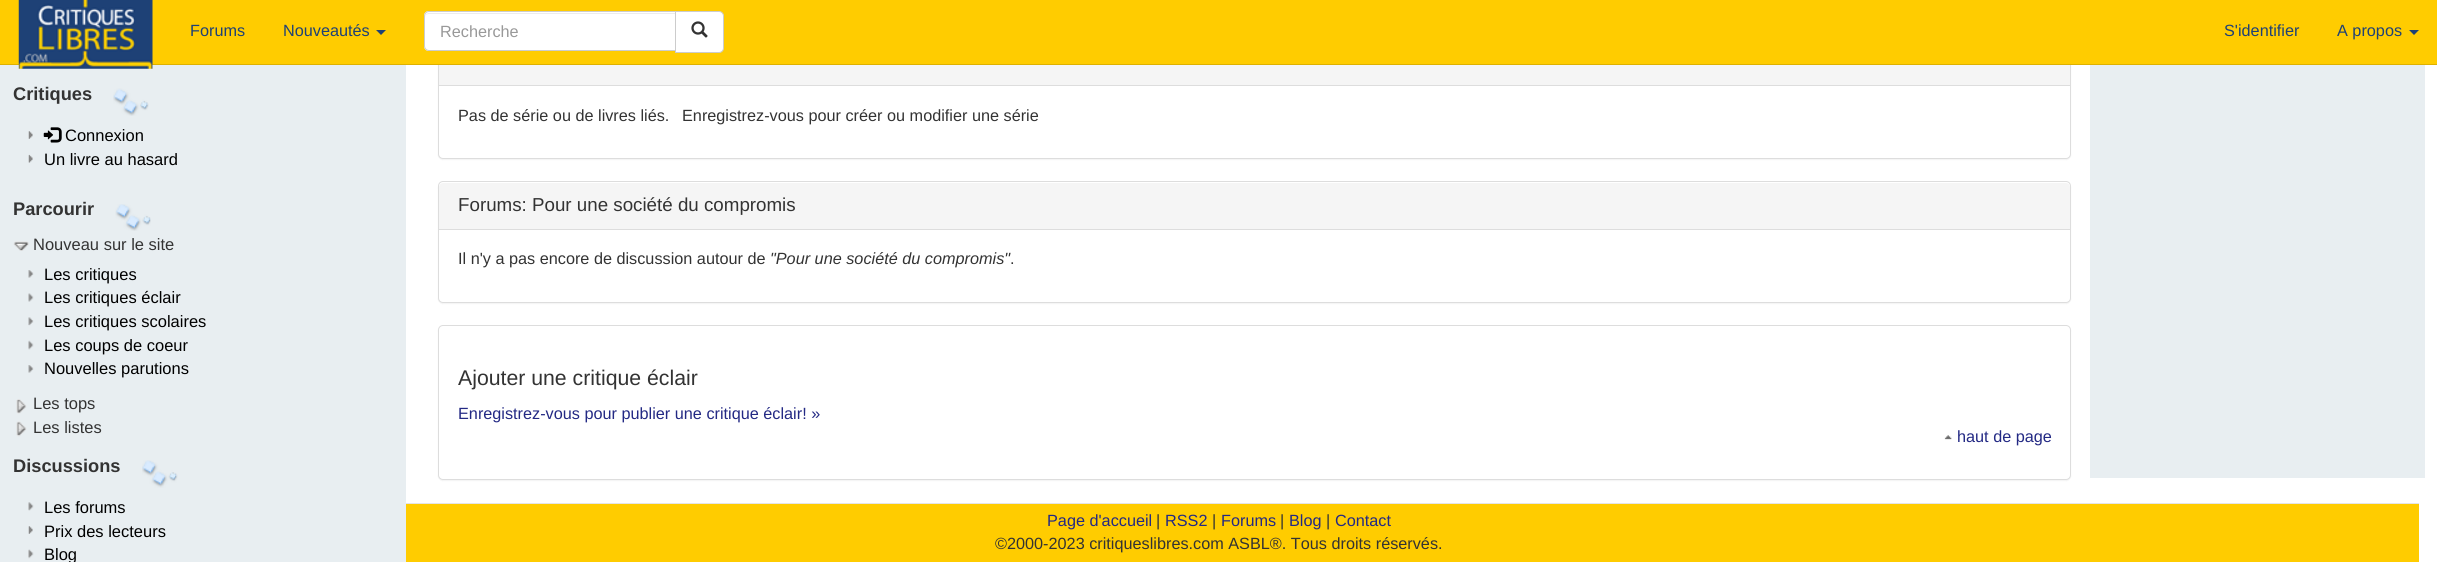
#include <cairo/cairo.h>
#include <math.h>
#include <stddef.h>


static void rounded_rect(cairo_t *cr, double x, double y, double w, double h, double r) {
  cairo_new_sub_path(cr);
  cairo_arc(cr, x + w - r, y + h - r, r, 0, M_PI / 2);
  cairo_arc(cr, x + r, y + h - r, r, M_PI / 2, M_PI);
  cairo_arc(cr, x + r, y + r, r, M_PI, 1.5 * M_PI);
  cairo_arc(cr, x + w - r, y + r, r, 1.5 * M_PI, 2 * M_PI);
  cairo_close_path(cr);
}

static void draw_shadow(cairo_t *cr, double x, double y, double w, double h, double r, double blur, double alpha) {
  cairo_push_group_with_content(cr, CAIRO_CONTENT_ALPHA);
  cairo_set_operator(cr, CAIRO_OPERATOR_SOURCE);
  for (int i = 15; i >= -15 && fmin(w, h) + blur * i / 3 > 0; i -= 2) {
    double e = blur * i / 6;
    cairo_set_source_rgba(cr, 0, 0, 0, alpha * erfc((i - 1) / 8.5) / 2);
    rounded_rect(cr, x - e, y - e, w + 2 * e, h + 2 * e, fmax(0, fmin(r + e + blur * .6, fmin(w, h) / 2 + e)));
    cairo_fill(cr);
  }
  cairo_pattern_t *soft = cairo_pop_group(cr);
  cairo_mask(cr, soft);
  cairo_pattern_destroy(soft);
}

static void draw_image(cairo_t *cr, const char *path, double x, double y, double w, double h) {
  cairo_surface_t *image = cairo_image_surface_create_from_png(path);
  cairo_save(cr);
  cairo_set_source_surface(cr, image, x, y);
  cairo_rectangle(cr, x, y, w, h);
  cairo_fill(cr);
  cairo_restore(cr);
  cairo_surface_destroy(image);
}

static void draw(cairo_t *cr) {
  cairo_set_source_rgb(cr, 1, 1, 1);
  cairo_paint(cr);
  cairo_set_source_rgb(cr, 0, 0, 0);
  draw_shadow(cr, 438, 39, 1633, 121, 5, 0.5, 0.05);
  cairo_set_source_rgb(cr, 1, 1, 1);
  rounded_rect(cr, 438.5, 38.5, 1632, 120, 4.5);
  cairo_fill_preserve(cr);
  cairo_set_source_rgb(cr, 221 / 255.0, 221 / 255.0, 221 / 255.0);
  cairo_set_line_width(cr, 1);
  cairo_stroke(cr);
  cairo_set_source_rgb(cr, 1, 204 / 255.0, 0);
  cairo_rectangle(cr, 0, 0, 2437, 64);
  cairo_fill(cr);
  cairo_set_source_rgb(cr, 222 / 255.0, 177 / 255.0, 0);
  cairo_rectangle(cr, 0, 64, 2437, 1);
  cairo_fill(cr);
  cairo_set_source_rgb(cr, 232 / 255.0, 238 / 255.0, 241 / 255.0);
  cairo_rectangle(cr, 0, 65, 406, 497);
  cairo_fill(cr);
  draw_image(cr, "images/1.png", 18, 0, 135, 69);
  cairo_set_source_rgb(cr, 30 / 255.0, 65 / 255.0, 118 / 255.0);
  cairo_new_path(cr);
  cairo_move_to(cr, 376, 30);
  cairo_line_to(cr, 386, 30);
  cairo_line_to(cr, 381, 35);
  cairo_close_path(cr);
  cairo_fill(cr);
  cairo_set_source_rgb(cr, 1, 1, 1);
  cairo_new_path(cr);
  cairo_move_to(cr, 429, 11);
  cairo_line_to(cr, 676, 11);
  cairo_line_to(cr, 676, 51);
  cairo_line_to(cr, 429, 51);
  cairo_curve_to(cr, 426, 51, 424, 49, 424, 46);
  cairo_line_to(cr, 424, 16);
  cairo_curve_to(cr, 424, 13, 426, 11, 429, 11);
  cairo_close_path(cr);
  cairo_fill(cr);
  cairo_set_source_rgb(cr, 236 / 255.0, 236 / 255.0, 236 / 255.0);
  cairo_new_path(cr);
  cairo_move_to(cr, 429, 14);
  cairo_line_to(cr, 675, 14);
  cairo_line_to(cr, 675, 13);
  cairo_line_to(cr, 429, 13);
  cairo_curve_to(cr, 427, 13, 425, 15, 425, 17);
  cairo_line_to(cr, 425, 18);
  cairo_curve_to(cr, 425, 15, 427, 14, 429, 14);
  cairo_close_path(cr);
  cairo_fill(cr);
  cairo_new_path(cr);
  cairo_move_to(cr, 429, 11.5);
  cairo_line_to(cr, 675.5, 11.5);
  cairo_line_to(cr, 675.5, 50.5);
  cairo_line_to(cr, 429, 50.5);
  cairo_curve_to(cr, 426.5, 50.5, 424.5, 48.5, 424.5, 46);
  cairo_line_to(cr, 424.5, 16);
  cairo_curve_to(cr, 424.5, 13.5, 426.5, 11.5, 429, 11.5);
  cairo_close_path(cr);
  cairo_set_source_rgb(cr, 204 / 255.0, 204 / 255.0, 204 / 255.0);
  cairo_stroke(cr);
  cairo_set_source_rgb(cr, 1, 1, 1);
  cairo_new_path(cr);
  cairo_move_to(cr, 675.5, 11.5);
  cairo_line_to(cr, 719, 11.5);
  cairo_curve_to(cr, 721.5, 11.5, 723.5, 13.5, 723.5, 16);
  cairo_line_to(cr, 723.5, 48);
  cairo_curve_to(cr, 723.5, 50.5, 721.5, 52.5, 719, 52.5);
  cairo_line_to(cr, 675.5, 52.5);
  cairo_close_path(cr);
  cairo_fill_preserve(cr);
  cairo_set_source_rgb(cr, 204 / 255.0, 204 / 255.0, 204 / 255.0);
  cairo_stroke(cr);
  draw_image(cr, "images/2.png", 691, 21, 17, 17);
  cairo_set_source_rgb(cr, 30 / 255.0, 65 / 255.0, 118 / 255.0);
  cairo_new_path(cr);
  cairo_move_to(cr, 2409, 30);
  cairo_line_to(cr, 2419, 30);
  cairo_line_to(cr, 2414, 35);
  cairo_close_path(cr);
  cairo_fill(cr);
  draw_image(cr, "images/3.png", 113, 88, 36, 28);
  draw_image(cr, "images/4.png", 28, 131, 5, 8);
  draw_image(cr, "images/5.png", 43, 127, 19, 16);
  draw_image(cr, "images/6.png", 28, 154, 5, 9);
  draw_image(cr, "images/7.png", 115, 204, 36, 27);
  draw_image(cr, "images/8.png", 13, 241, 16, 10);
  draw_image(cr, "images/9.png", 28, 270, 6, 8);
  draw_image(cr, "images/10.png", 28, 293, 6, 9);
  draw_image(cr, "images/11.png", 28, 317, 6, 9);
  draw_image(cr, "images/12.png", 28, 340, 6, 10);
  draw_image(cr, "images/9.png", 28, 365, 6, 8);
  draw_image(cr, "images/13.png", 16, 399, 11, 15);
  draw_image(cr, "images/14.png", 16, 421, 11, 16);
  draw_image(cr, "images/15.png", 142, 460, 36, 28);
  draw_image(cr, "images/16.png", 28, 502, 6, 9);
  draw_image(cr, "images/4.png", 28, 526, 5, 8);
  draw_image(cr, "images/17.png", 28, 549, 6, 10);
  cairo_set_source_rgb(cr, 245 / 255.0, 245 / 255.0, 245 / 255.0);
  cairo_rectangle(cr, 439, 65, 1631, 20);
  cairo_fill(cr);
  cairo_set_source_rgb(cr, 221 / 255.0, 221 / 255.0, 221 / 255.0);
  cairo_rectangle(cr, 439, 85, 1631, 1);
  cairo_fill(cr);
  cairo_set_source_rgb(cr, 0, 0, 0);
  draw_shadow(cr, 438, 183, 1633, 121, 5, 0.5, 0.05);
  cairo_set_source_rgb(cr, 1, 1, 1);
  rounded_rect(cr, 438.5, 181.5, 1632, 121, 4.5);
  cairo_fill_preserve(cr);
  cairo_set_source_rgb(cr, 221 / 255.0, 221 / 255.0, 221 / 255.0);
  cairo_stroke(cr);
  cairo_set_source_rgb(cr, 245 / 255.0, 245 / 255.0, 245 / 255.0);
  cairo_new_path(cr);
  cairo_move_to(cr, 443, 183);
  cairo_line_to(cr, 2066, 183);
  cairo_curve_to(cr, 2068, 183, 2070, 185, 2070, 187);
  cairo_line_to(cr, 2070, 230);
  cairo_line_to(cr, 439, 230);
  cairo_line_to(cr, 439, 187);
  cairo_curve_to(cr, 439, 185, 441, 183, 443, 183);
  cairo_close_path(cr);
  cairo_fill(cr);
  cairo_set_source_rgb(cr, 221 / 255.0, 221 / 255.0, 221 / 255.0);
  cairo_rectangle(cr, 439, 229, 1631, 1);
  cairo_fill(cr);
  cairo_set_source_rgb(cr, 0, 0, 0);
  draw_shadow(cr, 438, 326, 1633, 155, 5, 0.5, 0.05);
  cairo_set_source_rgb(cr, 1, 1, 1);
  rounded_rect(cr, 438.5, 325.5, 1632, 154, 4.5);
  cairo_fill_preserve(cr);
  cairo_set_source_rgb(cr, 221 / 255.0, 221 / 255.0, 221 / 255.0);
  cairo_stroke(cr);
  draw_image(cr, "images/18.png", 1944, 435, 8, 5);
  cairo_set_source_rgb(cr, 232 / 255.0, 238 / 255.0, 241 / 255.0);
  cairo_rectangle(cr, 2090, 65, 335, 413);
  cairo_fill(cr);
  cairo_set_source_rgb(cr, 1, 204 / 255.0, 0);
  cairo_rectangle(cr, 406, 504, 2013, 58);
  cairo_fill(cr);
  cairo_set_source_rgb(cr, 229 / 255.0, 229 / 255.0, 229 / 255.0);
  cairo_rectangle(cr, 406, 503, 2013, 1);
  cairo_fill(cr);
  cairo_select_font_face(cr, "Liberation Sans", CAIRO_FONT_SLANT_NORMAL, CAIRO_FONT_WEIGHT_NORMAL);
  cairo_set_font_size(cr, 16.25);
  cairo_set_source_rgb(cr, 30 / 255.0, 65 / 255.0, 118 / 255.0);
  cairo_move_to(cr, 190, 36);
  cairo_show_text(cr, "Forums");
  cairo_move_to(cr, 283, 36);
  cairo_show_text(cr, "Nouveautés");
  cairo_set_source_rgb(cr, 153 / 255.0, 153 / 255.0, 153 / 255.0);
  cairo_move_to(cr, 440, 37);
  cairo_show_text(cr, "Recherche");
  cairo_set_source_rgb(cr, 30 / 255.0, 65 / 255.0, 118 / 255.0);
  cairo_move_to(cr, 2224, 36);
  cairo_show_text(cr, "S'identifier");
  cairo_move_to(cr, 2337, 36);
  cairo_show_text(cr, "A propos");
  cairo_select_font_face(cr, "Liberation Sans", CAIRO_FONT_SLANT_NORMAL, CAIRO_FONT_WEIGHT_BOLD);
  cairo_set_font_size(cr, 18.25);
  cairo_set_source_rgb(cr, 51 / 255.0, 51 / 255.0, 51 / 255.0);
  cairo_move_to(cr, 13, 100);
  cairo_show_text(cr, "Critiques");
  cairo_select_font_face(cr, "Liberation Sans", CAIRO_FONT_SLANT_NORMAL, CAIRO_FONT_WEIGHT_NORMAL);
  cairo_set_font_size(cr, 16.5);
  cairo_set_source_rgb(cr, 0, 0, 0);
  cairo_move_to(cr, 65, 141);
  cairo_show_text(cr, "Connexion");
  cairo_move_to(cr, 44, 165);
  cairo_show_text(cr, "Un livre au hasard");
  cairo_select_font_face(cr, "Liberation Sans", CAIRO_FONT_SLANT_NORMAL, CAIRO_FONT_WEIGHT_BOLD);
  cairo_set_font_size(cr, 18.25);
  cairo_set_source_rgb(cr, 51 / 255.0, 51 / 255.0, 51 / 255.0);
  cairo_move_to(cr, 13, 215);
  cairo_show_text(cr, "Parcourir");
  cairo_select_font_face(cr, "Liberation Sans", CAIRO_FONT_SLANT_NORMAL, CAIRO_FONT_WEIGHT_NORMAL);
  cairo_set_font_size(cr, 16.5);
  cairo_move_to(cr, 33, 250);
  cairo_show_text(cr, "Nouveau sur le site");
  cairo_set_source_rgb(cr, 0, 0, 0);
  cairo_move_to(cr, 44, 280);
  cairo_show_text(cr, "Les critiques");
  cairo_move_to(cr, 44, 303);
  cairo_show_text(cr, "Les critiques éclair");
  cairo_move_to(cr, 44, 327);
  cairo_show_text(cr, "Les critiques scolaires");
  cairo_move_to(cr, 44, 351);
  cairo_show_text(cr, "Les coups de coeur");
  cairo_move_to(cr, 44, 374);
  cairo_show_text(cr, "Nouvelles parutions");
  cairo_set_source_rgb(cr, 51 / 255.0, 51 / 255.0, 51 / 255.0);
  cairo_move_to(cr, 33, 409);
  cairo_show_text(cr, "Les tops");
  cairo_move_to(cr, 33, 433);
  cairo_show_text(cr, "Les listes");
  cairo_select_font_face(cr, "Liberation Sans", CAIRO_FONT_SLANT_NORMAL, CAIRO_FONT_WEIGHT_BOLD);
  cairo_set_font_size(cr, 18.25);
  cairo_move_to(cr, 13, 472);
  cairo_show_text(cr, "Discussions");
  cairo_select_font_face(cr, "Liberation Sans", CAIRO_FONT_SLANT_NORMAL, CAIRO_FONT_WEIGHT_NORMAL);
  cairo_set_font_size(cr, 16.5);
  cairo_set_source_rgb(cr, 0, 0, 0);
  cairo_move_to(cr, 44, 513);
  cairo_show_text(cr, "Les forums");
  cairo_move_to(cr, 44, 537);
  cairo_show_text(cr, "Prix des lecteurs");
  cairo_move_to(cr, 44, 560);
  cairo_show_text(cr, "Blog");
  cairo_set_font_size(cr, 16.25);
  cairo_set_source_rgb(cr, 51 / 255.0, 51 / 255.0, 51 / 255.0);
  cairo_move_to(cr, 458, 121);
  cairo_show_text(cr, "Pas de série ou de livres liés.");
  cairo_move_to(cr, 682, 121);
  cairo_show_text(cr, "Enregistrez-vous pour créer ou modifier une série");
  cairo_set_font_size(cr, 18.75);
  cairo_move_to(cr, 458, 211);
  cairo_show_text(cr, "Forums: Pour une société du compromis");
  cairo_set_font_size(cr, 16.25);
  cairo_move_to(cr, 458, 264);
  cairo_show_text(cr, "Il n'y a pas encore de discussion autour de");
  cairo_select_font_face(cr, "Liberation Sans", CAIRO_FONT_SLANT_ITALIC, CAIRO_FONT_WEIGHT_NORMAL);
  cairo_move_to(cr, 770, 264);
  cairo_show_text(cr, "\"Pour une société du compromis\"");
  cairo_select_font_face(cr, "Liberation Sans", CAIRO_FONT_SLANT_NORMAL, CAIRO_FONT_WEIGHT_NORMAL);
  cairo_move_to(cr, 1010, 264);
  cairo_show_text(cr, ".");
  cairo_set_font_size(cr, 21.25);
  cairo_move_to(cr, 458, 385);
  cairo_show_text(cr, "Ajouter une critique éclair");
  cairo_set_font_size(cr, 16.25);
  cairo_set_source_rgb(cr, 35 / 255.0, 41 / 255.0, 132 / 255.0);
  cairo_move_to(cr, 458, 419);
  cairo_show_text(cr, "Enregistrez-vous pour publier une critique éclair! »");
  cairo_move_to(cr, 1957, 442);
  cairo_show_text(cr, "haut de page");
  cairo_move_to(cr, 1047, 526);
  cairo_show_text(cr, "Page d'accueil");
  cairo_set_source_rgb(cr, 51 / 255.0, 51 / 255.0, 51 / 255.0);
  cairo_move_to(cr, 1156, 526);
  cairo_show_text(cr, "|");
  cairo_set_source_rgb(cr, 35 / 255.0, 41 / 255.0, 132 / 255.0);
  cairo_move_to(cr, 1165, 526);
  cairo_show_text(cr, "RSS2");
  cairo_set_source_rgb(cr, 51 / 255.0, 51 / 255.0, 51 / 255.0);
  cairo_move_to(cr, 1212, 526);
  cairo_show_text(cr, "|");
  cairo_set_source_rgb(cr, 35 / 255.0, 41 / 255.0, 132 / 255.0);
  cairo_move_to(cr, 1221, 526);
  cairo_show_text(cr, "Forums");
  cairo_set_source_rgb(cr, 51 / 255.0, 51 / 255.0, 51 / 255.0);
  cairo_move_to(cr, 1280, 526);
  cairo_show_text(cr, "|");
  cairo_set_source_rgb(cr, 35 / 255.0, 41 / 255.0, 132 / 255.0);
  cairo_move_to(cr, 1289, 526);
  cairo_show_text(cr, "Blog");
  cairo_set_source_rgb(cr, 51 / 255.0, 51 / 255.0, 51 / 255.0);
  cairo_move_to(cr, 1326, 526);
  cairo_show_text(cr, "|");
  cairo_set_source_rgb(cr, 35 / 255.0, 41 / 255.0, 132 / 255.0);
  cairo_move_to(cr, 1335, 526);
  cairo_show_text(cr, "Contact");
  cairo_set_source_rgb(cr, 51 / 255.0, 51 / 255.0, 51 / 255.0);
  cairo_move_to(cr, 995, 549);
  cairo_show_text(cr, "©2000-2023 critiqueslibres.com ASBL®. Tous droits réservés.");
}

int main(void) {
  cairo_surface_t *surface = cairo_image_surface_create(CAIRO_FORMAT_RGB24, 2437, 562);
  cairo_t *cr = cairo_create(surface);
  cairo_font_options_t *options = cairo_font_options_create();
  cairo_font_options_set_hint_metrics(options, CAIRO_HINT_METRICS_OFF);
  cairo_font_options_set_hint_style(options, CAIRO_HINT_STYLE_NONE);
  cairo_set_font_options(cr, options);
  cairo_set_miter_limit(cr, 4);
  draw(cr);
  cairo_surface_write_to_png(surface, "out.png");
  cairo_font_options_destroy(options);
  cairo_destroy(cr);
  cairo_surface_destroy(surface);
  return 0;
}
